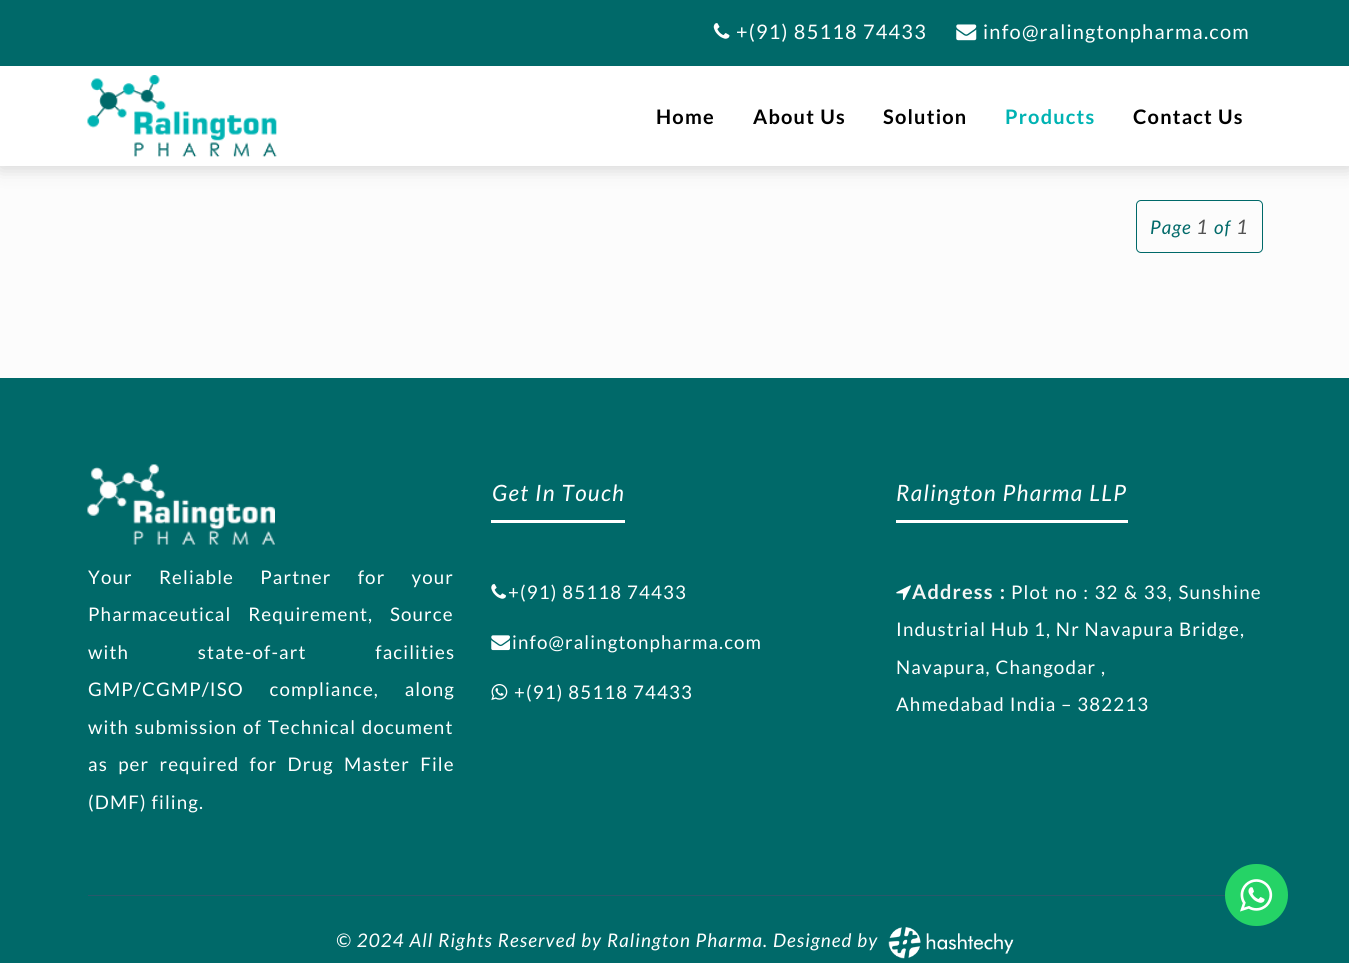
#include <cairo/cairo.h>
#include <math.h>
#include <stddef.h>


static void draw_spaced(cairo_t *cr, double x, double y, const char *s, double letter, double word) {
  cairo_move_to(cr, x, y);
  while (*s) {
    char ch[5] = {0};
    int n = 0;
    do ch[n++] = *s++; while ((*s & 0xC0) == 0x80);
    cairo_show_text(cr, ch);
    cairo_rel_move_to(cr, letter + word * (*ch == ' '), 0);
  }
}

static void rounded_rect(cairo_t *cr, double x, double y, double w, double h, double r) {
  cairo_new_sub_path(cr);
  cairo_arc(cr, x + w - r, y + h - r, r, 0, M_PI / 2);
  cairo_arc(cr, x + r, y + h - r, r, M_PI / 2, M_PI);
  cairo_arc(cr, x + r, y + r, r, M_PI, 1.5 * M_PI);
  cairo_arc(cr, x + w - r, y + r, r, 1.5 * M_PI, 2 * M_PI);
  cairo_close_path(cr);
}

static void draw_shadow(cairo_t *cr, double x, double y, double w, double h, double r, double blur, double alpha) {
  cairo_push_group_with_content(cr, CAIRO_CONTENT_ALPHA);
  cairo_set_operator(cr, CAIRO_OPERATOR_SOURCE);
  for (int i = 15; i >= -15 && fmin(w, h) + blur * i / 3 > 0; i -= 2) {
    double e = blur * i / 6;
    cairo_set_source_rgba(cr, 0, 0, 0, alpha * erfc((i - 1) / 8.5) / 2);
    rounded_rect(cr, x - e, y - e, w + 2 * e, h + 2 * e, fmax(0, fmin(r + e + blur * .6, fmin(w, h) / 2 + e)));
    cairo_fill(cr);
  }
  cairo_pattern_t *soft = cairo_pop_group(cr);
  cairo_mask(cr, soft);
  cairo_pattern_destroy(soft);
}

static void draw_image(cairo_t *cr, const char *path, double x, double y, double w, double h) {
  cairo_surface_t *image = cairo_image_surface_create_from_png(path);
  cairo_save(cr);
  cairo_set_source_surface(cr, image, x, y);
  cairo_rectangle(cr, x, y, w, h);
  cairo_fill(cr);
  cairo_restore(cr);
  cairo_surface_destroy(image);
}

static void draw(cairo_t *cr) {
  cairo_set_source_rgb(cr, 252 / 255.0, 252 / 255.0, 252 / 255.0);
  cairo_paint(cr);
  cairo_set_source_rgb(cr, 0, 0, 0);
  draw_shadow(cr, 0, 1, 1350, 167, 0, 9.5, 0.17);
  cairo_set_source_rgb(cr, 0, 105 / 255.0, 105 / 255.0);
  cairo_rectangle(cr, 0, 0, 1349, 66);
  cairo_fill(cr);
  draw_image(cr, "images/1.png", 713, 23, 17, 16);
  draw_image(cr, "images/2.png", 956, 24, 21, 17);
  cairo_set_source_rgb(cr, 1, 1, 1);
  cairo_rectangle(cr, 0, 66, 1349, 100);
  cairo_fill(cr);
  draw_image(cr, "images/3.png", 87, 75, 190, 82);
  rounded_rect(cr, 1136.5, 200.5, 126, 52, 4.5);
  cairo_set_source_rgb(cr, 0, 105 / 255.0, 105 / 255.0);
  cairo_set_line_width(cr, 1);
  cairo_stroke(cr);
  cairo_rectangle(cr, 0, 378, 1349, 585);
  cairo_fill(cr);
  cairo_set_source_rgb(cr, 41 / 255.0, 88 / 255.0, 107 / 255.0);
  cairo_rectangle(cr, 88, 895, 1138, 1);
  cairo_fill(cr);
  draw_image(cr, "images/4.png", 87, 464, 188, 81);
  cairo_set_source_rgb(cr, 1, 1, 1);
  cairo_rectangle(cr, 491, 520, 134, 3);
  cairo_fill(cr);
  draw_image(cr, "images/5.png", 491, 584, 15, 15);
  draw_image(cr, "images/6.png", 491, 635, 19, 16);
  draw_image(cr, "images/7.png", 491, 684, 17, 17);
  cairo_rectangle(cr, 896, 520, 232, 3);
  cairo_fill(cr);
  draw_image(cr, "images/8.png", 896, 585, 15, 16);
  cairo_set_source_rgb(cr, 37 / 255.0, 211 / 255.0, 102 / 255.0);
  rounded_rect(cr, 1225, 864, 63, 62, 31);
  cairo_fill(cr);
  draw_image(cr, "images/9.png", 1240, 879, 33, 33);
  draw_image(cr, "images/10.png", 888, 927, 126, 32);
  cairo_select_font_face(cr, "Lato", CAIRO_FONT_SLANT_NORMAL, CAIRO_FONT_WEIGHT_NORMAL);
  cairo_set_font_size(cr, 20);
  cairo_set_source_rgb(cr, 1, 1, 1);
  draw_spaced(cr, 736, 39, "+(91) 85118 74433", 1.2, 0);
  draw_spaced(cr, 983, 39, "info@ralingtonpharma.com", 1.2, 0);
  cairo_select_font_face(cr, "Lato", CAIRO_FONT_SLANT_NORMAL, CAIRO_FONT_WEIGHT_BOLD);
  cairo_set_source_rgb(cr, 0, 0, 0);
  draw_spaced(cr, 656, 124, "Home", 1.2, 0);
  draw_spaced(cr, 753, 124, "About Us", 1.2, 0);
  draw_spaced(cr, 883, 124, "Solution", 1.2, 0);
  cairo_set_source_rgb(cr, 0, 179 / 255.0, 179 / 255.0);
  draw_spaced(cr, 1005, 124, "Products", 1.2, 0);
  cairo_set_source_rgb(cr, 0, 0, 0);
  draw_spaced(cr, 1133, 124, "Contact Us", 1.2, 0);
  cairo_select_font_face(cr, "Lato", CAIRO_FONT_SLANT_ITALIC, CAIRO_FONT_WEIGHT_NORMAL);
  cairo_set_font_size(cr, 18.75);
  cairo_set_source_rgb(cr, 0, 105 / 255.0, 105 / 255.0);
  draw_spaced(cr, 1150, 234, "Page", 1.12, 0);
  cairo_set_font_size(cr, 20);
  cairo_set_source_rgb(cr, 83 / 255.0, 83 / 255.0, 83 / 255.0);
  draw_spaced(cr, 1196, 234, "1", 1.2, 0);
  cairo_set_font_size(cr, 18.75);
  cairo_set_source_rgb(cr, 0, 105 / 255.0, 105 / 255.0);
  draw_spaced(cr, 1214, 234, "of", 1.12, 0);
  cairo_set_font_size(cr, 20);
  cairo_set_source_rgb(cr, 83 / 255.0, 83 / 255.0, 83 / 255.0);
  draw_spaced(cr, 1236, 234, "1", 1.2, 0);
  cairo_select_font_face(cr, "Lato", CAIRO_FONT_SLANT_NORMAL, CAIRO_FONT_WEIGHT_NORMAL);
  cairo_set_font_size(cr, 18.75);
  cairo_set_source_rgb(cr, 1, 1, 1);
  draw_spaced(cr, 88, 584, "Your Reliable Partner for your", 1.12, 21.5);
  draw_spaced(cr, 88, 621, "Pharmaceutical Requirement, Source", 1.12, 12);
  draw_spaced(cr, 88, 659, "with state-of-art facilities", 1.12, 64);
  draw_spaced(cr, 88, 696, "GMP/CGMP/ISO compliance, along", 1.12, 21);
  draw_spaced(cr, 88, 734, "with submission of Technical document", 1.12, 1);
  draw_spaced(cr, 88, 771, "as per required for Drug Master File", 1.12, 5.5);
  draw_spaced(cr, 88, 809, "(DMF) filing.", 1.12, 0);
  cairo_select_font_face(cr, "Lato", CAIRO_FONT_SLANT_ITALIC, CAIRO_FONT_WEIGHT_NORMAL);
  cairo_set_font_size(cr, 22.5);
  draw_spaced(cr, 492, 501, "Get In Touch", 1.35, 0);
  cairo_select_font_face(cr, "Lato", CAIRO_FONT_SLANT_NORMAL, CAIRO_FONT_WEIGHT_NORMAL);
  cairo_set_font_size(cr, 18.75);
  draw_spaced(cr, 508, 599, "+(91) 85118 74433", 1.12, 0);
  draw_spaced(cr, 512, 649, "info@ralingtonpharma.com", 1.12, 0);
  draw_spaced(cr, 514, 699, "+(91) 85118 74433", 1.12, 0);
  cairo_select_font_face(cr, "Lato", CAIRO_FONT_SLANT_ITALIC, CAIRO_FONT_WEIGHT_NORMAL);
  cairo_set_font_size(cr, 22.5);
  draw_spaced(cr, 896, 501, "Ralington Pharma LLP", 1.35, 0);
  cairo_select_font_face(cr, "Lato", CAIRO_FONT_SLANT_NORMAL, CAIRO_FONT_WEIGHT_BOLD);
  cairo_set_font_size(cr, 20);
  cairo_set_source_rgb(cr, 245 / 255.0, 245 / 255.0, 245 / 255.0);
  draw_spaced(cr, 912, 599, "Address :", 1.2, 1);
  cairo_select_font_face(cr, "Lato", CAIRO_FONT_SLANT_NORMAL, CAIRO_FONT_WEIGHT_NORMAL);
  cairo_set_font_size(cr, 18.75);
  cairo_set_source_rgb(cr, 1, 1, 1);
  draw_spaced(cr, 1011, 599, "Plot no : 32 & 33, Sunshine", 1.12, 0.75);
  draw_spaced(cr, 896, 636, "Industrial Hub 1, Nr Navapura Bridge,", 1.12, 0);
  draw_spaced(cr, 896, 674, "Navapura, Changodar ,", 1.12, 0);
  draw_spaced(cr, 896, 711, "Ahmedabad India – 382213", 1.12, 0);
  cairo_select_font_face(cr, "Lato", CAIRO_FONT_SLANT_ITALIC, CAIRO_FONT_WEIGHT_NORMAL);
  draw_spaced(cr, 336, 947, "© 2024 All Rights Reserved by Ralington Pharma. Designed by", 1.12, 0);
}

int main(void) {
  cairo_surface_t *surface = cairo_image_surface_create(CAIRO_FORMAT_RGB24, 1349, 963);
  cairo_t *cr = cairo_create(surface);
  cairo_font_options_t *options = cairo_font_options_create();
  cairo_font_options_set_hint_metrics(options, CAIRO_HINT_METRICS_OFF);
  cairo_font_options_set_hint_style(options, CAIRO_HINT_STYLE_NONE);
  cairo_set_font_options(cr, options);
  cairo_set_miter_limit(cr, 4);
  draw(cr);
  cairo_surface_write_to_png(surface, "out.png");
  cairo_font_options_destroy(options);
  cairo_destroy(cr);
  cairo_surface_destroy(surface);
  return 0;
}
